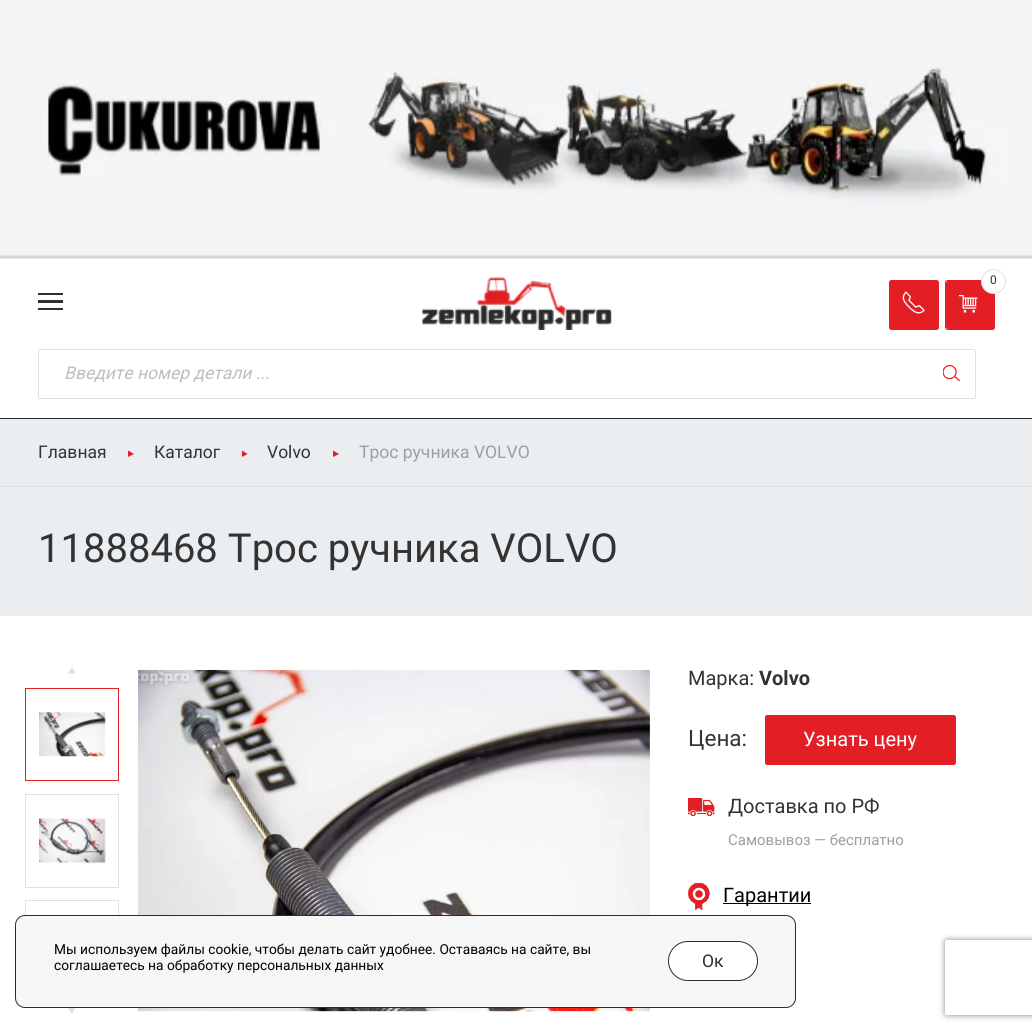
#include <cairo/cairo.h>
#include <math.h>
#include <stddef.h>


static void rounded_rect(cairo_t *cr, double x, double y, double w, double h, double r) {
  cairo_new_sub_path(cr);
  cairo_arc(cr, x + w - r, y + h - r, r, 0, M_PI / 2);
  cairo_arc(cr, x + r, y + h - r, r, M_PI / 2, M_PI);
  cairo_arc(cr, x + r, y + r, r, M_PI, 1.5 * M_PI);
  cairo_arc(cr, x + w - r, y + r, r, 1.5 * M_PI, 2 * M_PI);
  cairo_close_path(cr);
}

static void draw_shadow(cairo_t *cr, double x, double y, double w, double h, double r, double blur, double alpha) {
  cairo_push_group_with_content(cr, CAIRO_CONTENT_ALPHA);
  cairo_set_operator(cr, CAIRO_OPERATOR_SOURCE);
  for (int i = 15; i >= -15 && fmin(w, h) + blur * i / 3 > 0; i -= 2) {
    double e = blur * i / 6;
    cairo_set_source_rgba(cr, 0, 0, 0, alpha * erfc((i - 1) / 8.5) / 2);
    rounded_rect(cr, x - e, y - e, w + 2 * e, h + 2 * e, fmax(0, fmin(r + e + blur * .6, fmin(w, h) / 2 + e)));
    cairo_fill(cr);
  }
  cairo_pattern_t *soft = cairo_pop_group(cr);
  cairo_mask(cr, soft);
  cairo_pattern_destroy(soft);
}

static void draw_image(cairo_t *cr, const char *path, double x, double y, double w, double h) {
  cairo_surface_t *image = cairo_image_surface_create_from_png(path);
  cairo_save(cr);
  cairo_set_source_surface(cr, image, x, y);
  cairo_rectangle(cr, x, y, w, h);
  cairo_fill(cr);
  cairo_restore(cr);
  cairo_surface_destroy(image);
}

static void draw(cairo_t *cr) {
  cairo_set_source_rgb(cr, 1, 1, 1);
  cairo_paint(cr);
  draw_image(cr, "images/1.png", 0, 0, 1032, 259);
  cairo_set_source_rgb(cr, 43 / 255.0, 44 / 255.0, 46 / 255.0);
  cairo_rectangle(cr, 0, 418, 1032, 1);
  cairo_fill(cr);
  rounded_rect(cr, 945.5, 280.5, 49, 49, 2);
  cairo_set_source_rgb(cr, 227 / 255.0, 30 / 255.0, 36 / 255.0);
  cairo_set_line_width(cr, 1);
  cairo_stroke(cr);
  cairo_new_path(cr);
  cairo_move_to(cr, 948.5, 281);
  cairo_line_to(cr, 994, 281);
  cairo_line_to(cr, 994, 329);
  cairo_line_to(cr, 948.5, 329);
  cairo_curve_to(cr, 947, 329, 946, 328, 946, 326.5);
  cairo_line_to(cr, 946, 283.5);
  cairo_curve_to(cr, 946, 282, 947, 281, 948.5, 281);
  cairo_close_path(cr);
  cairo_fill(cr);
  cairo_set_source_rgb(cr, 1, 1, 1);
  cairo_arc(cr, 993.5, 281.5, 12, 0, 2 * M_PI);
  cairo_fill_preserve(cr);
  cairo_set_source_rgb(cr, 224 / 255.0, 224 / 255.0, 224 / 255.0);
  cairo_stroke(cr);
  draw_image(cr, "images/2.png", 959, 295, 19, 18);
  cairo_set_source_rgb(cr, 47 / 255.0, 46 / 255.0, 45 / 255.0);
  cairo_rectangle(cr, 38, 293, 25, 2);
  cairo_fill(cr);
  cairo_rectangle(cr, 38, 300, 25, 3);
  cairo_fill(cr);
  cairo_rectangle(cr, 38, 308, 25, 2);
  cairo_fill(cr);
  draw_image(cr, "images/3.png", 422, 277, 190, 53);
  cairo_set_source_rgb(cr, 227 / 255.0, 30 / 255.0, 36 / 255.0);
  rounded_rect(cr, 889, 280, 50, 50, 2.5);
  cairo_fill(cr);
  draw_image(cr, "images/4.png", 902, 291, 23, 23);
  rounded_rect(cr, 38.5, 349.5, 937, 49, 2);
  cairo_set_source_rgb(cr, 224 / 255.0, 224 / 255.0, 224 / 255.0);
  cairo_stroke(cr);
  draw_image(cr, "images/5.png", 943, 365, 17, 16);
  cairo_set_source_rgb(cr, 234 / 255.0, 238 / 255.0, 241 / 255.0);
  cairo_rectangle(cr, 0, 419, 1032, 197);
  cairo_fill(cr);
  cairo_set_source_rgb(cr, 224 / 255.0, 224 / 255.0, 224 / 255.0);
  cairo_rectangle(cr, 0, 486, 1032, 1);
  cairo_fill(cr);
  cairo_set_source_rgb(cr, 227 / 255.0, 30 / 255.0, 36 / 255.0);
  cairo_new_path(cr);
  cairo_move_to(cr, 128, 450.5);
  cairo_line_to(cr, 134, 454);
  cairo_line_to(cr, 128, 457);
  cairo_close_path(cr);
  cairo_fill(cr);
  cairo_new_path(cr);
  cairo_move_to(cr, 242, 450.5);
  cairo_line_to(cr, 247.5, 454);
  cairo_line_to(cr, 242, 457);
  cairo_close_path(cr);
  cairo_fill(cr);
  cairo_new_path(cr);
  cairo_move_to(cr, 333, 450.5);
  cairo_line_to(cr, 339, 454);
  cairo_line_to(cr, 333, 457);
  cairo_close_path(cr);
  cairo_fill(cr);
  cairo_set_source_rgb(cr, 224 / 255.0, 224 / 255.0, 224 / 255.0);
  cairo_new_path(cr);
  cairo_move_to(cr, 72, 667);
  cairo_line_to(cr, 75.5, 673.5);
  cairo_line_to(cr, 68, 673.5);
  cairo_close_path(cr);
  cairo_fill(cr);
  cairo_rectangle(cr, 25.5, 688.5, 93, 92);
  cairo_set_source_rgb(cr, 227 / 255.0, 30 / 255.0, 36 / 255.0);
  cairo_stroke(cr);
  draw_image(cr, "images/6.png", 39, 712, 67, 45);
  cairo_rectangle(cr, 25.5, 794.5, 93, 93);
  cairo_set_source_rgb(cr, 224 / 255.0, 224 / 255.0, 224 / 255.0);
  cairo_stroke(cr);
  draw_image(cr, "images/7.png", 39, 818, 67, 46);
  cairo_rectangle(cr, 25.5, 900.5, 93, 93);
  cairo_stroke(cr);
  cairo_new_path(cr);
  cairo_move_to(cr, 72, 1014);
  cairo_line_to(cr, 68, 1007.5);
  cairo_line_to(cr, 75.5, 1007.5);
  cairo_close_path(cr);
  cairo_fill(cr);
  draw_image(cr, "images/8.png", 138, 669, 512, 343);
  cairo_set_source_rgb(cr, 227 / 255.0, 30 / 255.0, 36 / 255.0);
  rounded_rect(cr, 765, 715, 191, 50, 2.5);
  cairo_fill(cr);
  draw_image(cr, "images/9.png", 688, 798, 27, 18);
  draw_image(cr, "images/10.png", 688, 883, 22, 27);
  cairo_set_source_rgb(cr, 0, 0, 0);
  cairo_rectangle(cr, 723, 903, 88, 1);
  cairo_fill(cr);
  cairo_set_source_rgb(cr, 246 / 255.0, 246 / 255.0, 246 / 255.0);
  rounded_rect(cr, 15.5, 915.5, 780, 92, 9.5);
  cairo_fill_preserve(cr);
  cairo_set_source_rgb(cr, 43 / 255.0, 44 / 255.0, 46 / 255.0);
  cairo_stroke(cr);
  cairo_set_source_rgb(cr, 1, 1, 1);
  rounded_rect(cr, 668.5, 941.5, 89, 39, 19.5);
  cairo_fill_preserve(cr);
  cairo_set_source_rgb(cr, 45 / 255.0, 45 / 255.0, 45 / 255.0);
  cairo_stroke(cr);
  cairo_save(cr);
  cairo_set_fill_rule(cr, CAIRO_FILL_RULE_EVEN_ODD);
  cairo_new_path(cr);
  cairo_move_to(cr, 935, 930);
  cairo_line_to(cr, 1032, 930);
  cairo_line_to(cr, 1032, 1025);
  cairo_line_to(cr, 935, 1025);
  cairo_close_path(cr);
  cairo_move_to(cr, 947.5, 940);
  cairo_line_to(cr, 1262.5, 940);
  cairo_curve_to(cr, 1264, 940, 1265, 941, 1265, 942.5);
  cairo_line_to(cr, 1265, 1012.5);
  cairo_curve_to(cr, 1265, 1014, 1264, 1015, 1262.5, 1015);
  cairo_line_to(cr, 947.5, 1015);
  cairo_curve_to(cr, 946, 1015, 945, 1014, 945, 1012.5);
  cairo_line_to(cr, 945, 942.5);
  cairo_curve_to(cr, 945, 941, 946, 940, 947.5, 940);
  cairo_close_path(cr);
  cairo_clip(cr);
  cairo_set_source_rgb(cr, 128 / 255.0, 128 / 255.0, 128 / 255.0);
  draw_shadow(cr, 945, 940, 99, 75, 2.5, 3, 1);
  cairo_restore(cr);
  cairo_select_font_face(cr, "Roboto", CAIRO_FONT_SLANT_NORMAL, CAIRO_FONT_WEIGHT_NORMAL);
  cairo_set_font_size(cr, 12);
  cairo_set_source_rgb(cr, 51 / 255.0, 51 / 255.0, 51 / 255.0);
  cairo_move_to(cr, 990, 284);
  cairo_show_text(cr, "0");
  cairo_select_font_face(cr, "Roboto", CAIRO_FONT_SLANT_ITALIC, CAIRO_FONT_WEIGHT_NORMAL);
  cairo_set_font_size(cr, 17.5);
  cairo_set_source_rgb(cr, 190 / 255.0, 190 / 255.0, 190 / 255.0);
  cairo_move_to(cr, 64, 379);
  cairo_show_text(cr, "Введите номер детали ...");
  cairo_select_font_face(cr, "Roboto", CAIRO_FONT_SLANT_NORMAL, CAIRO_FONT_WEIGHT_NORMAL);
  cairo_set_source_rgb(cr, 51 / 255.0, 51 / 255.0, 51 / 255.0);
  cairo_move_to(cr, 38, 458);
  cairo_show_text(cr, "Главная");
  cairo_move_to(cr, 154, 458);
  cairo_show_text(cr, "Каталог");
  cairo_move_to(cr, 267, 458);
  cairo_show_text(cr, "Volvo");
  cairo_set_source_rgb(cr, 159 / 255.0, 159 / 255.0, 159 / 255.0);
  cairo_move_to(cr, 359, 458);
  cairo_show_text(cr, "Трос ручника VOLVO");
  cairo_set_font_size(cr, 40);
  cairo_set_source_rgb(cr, 51 / 255.0, 51 / 255.0, 51 / 255.0);
  cairo_move_to(cr, 38, 562);
  cairo_show_text(cr, "11888468 Трос ручника VOLVO");
  cairo_set_font_size(cr, 20);
  cairo_move_to(cr, 688, 685);
  cairo_show_text(cr, "Марка:");
  cairo_select_font_face(cr, "Roboto", CAIRO_FONT_SLANT_NORMAL, CAIRO_FONT_WEIGHT_BOLD);
  cairo_move_to(cr, 759, 685);
  cairo_show_text(cr, "Volvo");
  cairo_select_font_face(cr, "Roboto", CAIRO_FONT_SLANT_NORMAL, CAIRO_FONT_WEIGHT_NORMAL);
  cairo_set_font_size(cr, 22.5);
  cairo_move_to(cr, 688, 746);
  cairo_show_text(cr, "Цена:");
  cairo_set_font_size(cr, 20);
  cairo_set_source_rgb(cr, 1, 1, 1);
  cairo_move_to(cr, 803, 746);
  cairo_show_text(cr, "Узнать цену");
  cairo_set_source_rgb(cr, 51 / 255.0, 51 / 255.0, 51 / 255.0);
  cairo_move_to(cr, 728, 813);
  cairo_show_text(cr, "Доставка по РФ");
  cairo_set_font_size(cr, 15);
  cairo_set_source_rgb(cr, 159 / 255.0, 159 / 255.0, 159 / 255.0);
  cairo_move_to(cr, 728, 845);
  cairo_show_text(cr, "Самовывоз — бесплатно");
  cairo_set_font_size(cr, 20);
  cairo_set_source_rgb(cr, 0, 0, 0);
  cairo_move_to(cr, 723, 902);
  cairo_show_text(cr, "Гарантии");
  cairo_set_font_size(cr, 13.75);
  cairo_move_to(cr, 54, 954);
  cairo_show_text(cr, "Мы используем файлы cookie, чтобы делать сайт удобнее. Оставаясь на сайте, вы");
  cairo_move_to(cr, 54, 970);
  cairo_show_text(cr, "соглашаетесь на обработку персональных данных");
  cairo_set_font_size(cr, 17.5);
  cairo_set_source_rgb(cr, 45 / 255.0, 45 / 255.0, 45 / 255.0);
  cairo_move_to(cr, 702, 967);
  cairo_show_text(cr, "Ок");
}

int main(void) {
  cairo_surface_t *surface = cairo_image_surface_create(CAIRO_FORMAT_RGB24, 1032, 1032);
  cairo_t *cr = cairo_create(surface);
  cairo_font_options_t *options = cairo_font_options_create();
  cairo_font_options_set_hint_metrics(options, CAIRO_HINT_METRICS_OFF);
  cairo_font_options_set_hint_style(options, CAIRO_HINT_STYLE_NONE);
  cairo_set_font_options(cr, options);
  cairo_set_miter_limit(cr, 4);
  draw(cr);
  cairo_surface_write_to_png(surface, "out.png");
  cairo_font_options_destroy(options);
  cairo_destroy(cr);
  cairo_surface_destroy(surface);
  return 0;
}
